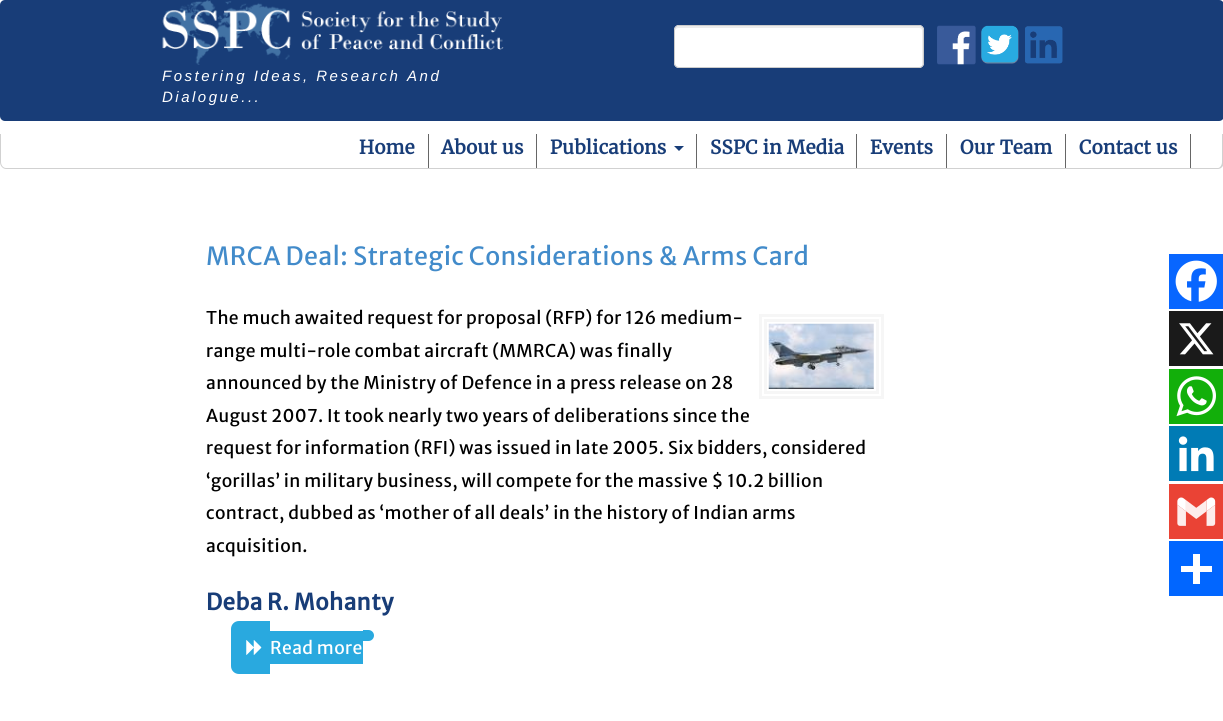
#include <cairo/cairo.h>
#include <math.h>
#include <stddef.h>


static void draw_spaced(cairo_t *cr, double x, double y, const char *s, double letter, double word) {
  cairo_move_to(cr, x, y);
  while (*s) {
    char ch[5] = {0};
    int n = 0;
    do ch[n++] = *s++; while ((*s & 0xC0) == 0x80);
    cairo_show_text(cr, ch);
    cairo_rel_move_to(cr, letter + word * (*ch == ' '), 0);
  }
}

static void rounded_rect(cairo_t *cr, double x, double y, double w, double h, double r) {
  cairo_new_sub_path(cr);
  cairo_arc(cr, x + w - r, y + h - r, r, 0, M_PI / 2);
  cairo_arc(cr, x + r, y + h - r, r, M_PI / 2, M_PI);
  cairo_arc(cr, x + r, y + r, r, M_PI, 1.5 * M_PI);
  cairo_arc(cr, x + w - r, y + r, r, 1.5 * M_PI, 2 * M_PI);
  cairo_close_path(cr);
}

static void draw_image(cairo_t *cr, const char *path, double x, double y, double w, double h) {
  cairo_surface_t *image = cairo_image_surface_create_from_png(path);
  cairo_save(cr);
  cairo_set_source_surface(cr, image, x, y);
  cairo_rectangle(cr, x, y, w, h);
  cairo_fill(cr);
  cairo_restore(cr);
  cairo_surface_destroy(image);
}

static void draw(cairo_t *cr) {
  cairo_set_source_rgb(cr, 1, 1, 1);
  cairo_paint(cr);
  cairo_set_source_rgb(cr, 24 / 255.0, 61 / 255.0, 120 / 255.0);
  rounded_rect(cr, 0, 0, 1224, 121, 5);
  cairo_fill(cr);
  cairo_set_source_rgb(cr, 1, 1, 1);
  rounded_rect(cr, 674, 25, 250, 43, 5);
  cairo_fill(cr);
  cairo_set_source_rgb(cr, 236 / 255.0, 236 / 255.0, 236 / 255.0);
  cairo_new_path(cr);
  cairo_move_to(cr, 679, 28);
  cairo_line_to(cr, 919, 28);
  cairo_curve_to(cr, 921, 28, 922, 29, 922, 31);
  cairo_line_to(cr, 922, 65);
  cairo_curve_to(cr, 923, 64, 923, 63, 923, 62);
  cairo_line_to(cr, 923, 30);
  cairo_curve_to(cr, 923, 28, 921, 26, 919, 26);
  cairo_line_to(cr, 679, 26);
  cairo_curve_to(cr, 677, 26, 675, 28, 675, 30);
  cairo_line_to(cr, 675, 31);
  cairo_curve_to(cr, 675, 29, 677, 28, 679, 28);
  cairo_close_path(cr);
  cairo_fill(cr);
  rounded_rect(cr, 674.5, 25.5, 249, 42, 4.5);
  cairo_set_source_rgb(cr, 204 / 255.0, 204 / 255.0, 204 / 255.0);
  cairo_set_line_width(cr, 1);
  cairo_stroke(cr);
  draw_image(cr, "images/1.png", 937, 25, 39, 40);
  draw_image(cr, "images/2.png", 981, 25, 38, 39);
  draw_image(cr, "images/3.png", 1025, 26, 38, 38);
  draw_image(cr, "images/4.png", 162, 0, 342, 65);
  cairo_set_source_rgb(cr, 209 / 255.0, 209 / 255.0, 209 / 255.0);
  cairo_set_fill_rule(cr, CAIRO_FILL_RULE_EVEN_ODD);
  cairo_new_path(cr);
  cairo_move_to(cr, 0, 134);
  cairo_line_to(cr, 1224, 134);
  cairo_line_to(cr, 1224, 162);
  cairo_curve_to(cr, 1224, 166, 1221, 169, 1218, 169);
  cairo_line_to(cr, 6, 169);
  cairo_curve_to(cr, 3, 169, 0, 166, 0, 162);
  cairo_close_path(cr);
  cairo_move_to(cr, 1, 134);
  cairo_line_to(cr, 1222, 134);
  cairo_line_to(cr, 1222, 162);
  cairo_curve_to(cr, 1222, 165, 1220, 168, 1218, 168);
  cairo_line_to(cr, 6, 168);
  cairo_curve_to(cr, 3, 168, 1, 165, 1, 162);
  cairo_close_path(cr);
  cairo_fill(cr);
  cairo_set_source_rgb(cr, 102 / 255.0, 102 / 255.0, 102 / 255.0);
  cairo_rectangle(cr, 428, 134, 1, 34);
  cairo_fill(cr);
  cairo_rectangle(cr, 536, 134, 1, 34);
  cairo_fill(cr);
  cairo_rectangle(cr, 696, 134, 1, 34);
  cairo_fill(cr);
  cairo_set_source_rgb(cr, 24 / 255.0, 61 / 255.0, 120 / 255.0);
  cairo_set_fill_rule(cr, CAIRO_FILL_RULE_WINDING);
  cairo_new_path(cr);
  cairo_move_to(cr, 674, 146);
  cairo_line_to(cr, 684, 146);
  cairo_line_to(cr, 679, 151);
  cairo_close_path(cr);
  cairo_fill(cr);
  cairo_set_source_rgb(cr, 102 / 255.0, 102 / 255.0, 102 / 255.0);
  cairo_rectangle(cr, 856, 134, 1, 34);
  cairo_fill(cr);
  cairo_rectangle(cr, 946, 134, 1, 34);
  cairo_fill(cr);
  cairo_rectangle(cr, 1065, 134, 1, 34);
  cairo_fill(cr);
  cairo_rectangle(cr, 1190, 134, 1, 34);
  cairo_fill(cr);
  cairo_rectangle(cr, 760.5, 315.5, 122, 82);
  cairo_set_source_rgb(cr, 246 / 255.0, 246 / 255.0, 246 / 255.0);
  cairo_set_line_width(cr, 3);
  cairo_stroke(cr);
  cairo_rectangle(cr, 765.5, 320.5, 112, 72);
  cairo_stroke(cr);
  draw_image(cr, "images/5.png", 768, 323, 106, 66);
  cairo_set_source_rgb(cr, 41 / 255.0, 169 / 255.0, 223 / 255.0);
  cairo_new_path(cr);
  cairo_move_to(cr, 239, 621);
  cairo_line_to(cr, 270, 621);
  cairo_line_to(cr, 270, 674);
  cairo_line_to(cr, 239, 674);
  cairo_curve_to(cr, 234.5, 674, 231, 670.5, 231, 666);
  cairo_line_to(cr, 231, 629);
  cairo_curve_to(cr, 231, 624.5, 234.5, 621, 239, 621);
  cairo_close_path(cr);
  cairo_fill(cr);
  draw_image(cr, "images/6.png", 246, 640, 16, 15);
  cairo_rectangle(cr, 270, 631, 93, 33);
  cairo_fill(cr);
  cairo_new_path(cr);
  cairo_move_to(cr, 363, 630);
  cairo_line_to(cr, 368.5, 630);
  cairo_curve_to(cr, 371.5, 630, 374, 632.5, 374, 635.5);
  cairo_curve_to(cr, 374, 638.5, 371.5, 641, 368.5, 641);
  cairo_line_to(cr, 363, 641);
  cairo_close_path(cr);
  cairo_fill(cr);
  cairo_set_source_rgb(cr, 8 / 255.0, 102 / 255.0, 1);
  cairo_rectangle(cr, 1169, 254, 54, 55);
  cairo_fill(cr);
  draw_image(cr, "images/7.png", 1175, 260, 42, 42);
  cairo_set_source_rgb(cr, 26 / 255.0, 26 / 255.0, 26 / 255.0);
  cairo_rectangle(cr, 1169, 311, 54, 55);
  cairo_fill(cr);
  draw_image(cr, "images/8.png", 1179, 323, 35, 32);
  cairo_set_source_rgb(cr, 18 / 255.0, 175 / 255.0, 10 / 255.0);
  cairo_rectangle(cr, 1169, 369, 54, 55);
  cairo_fill(cr);
  draw_image(cr, "images/9.png", 1176, 376, 40, 41);
  cairo_set_source_rgb(cr, 0, 123 / 255.0, 181 / 255.0);
  cairo_rectangle(cr, 1169, 426, 54, 55);
  cairo_fill(cr);
  draw_image(cr, "images/10.png", 1178, 436, 36, 36);
  cairo_set_source_rgb(cr, 234 / 255.0, 67 / 255.0, 53 / 255.0);
  cairo_rectangle(cr, 1169, 484, 54, 55);
  cairo_fill(cr);
  draw_image(cr, "images/11.png", 1177, 497, 39, 29);
  cairo_set_source_rgb(cr, 1 / 255.0, 102 / 255.0, 1);
  cairo_rectangle(cr, 1169, 541, 54, 55);
  cairo_fill(cr);
  cairo_set_source_rgb(cr, 1, 1, 1);
  cairo_rectangle(cr, 1193, 554, 7, 30);
  cairo_fill(cr);
  cairo_rectangle(cr, 1181, 566, 31, 6);
  cairo_fill(cr);
  cairo_select_font_face(cr, "Liberation Sans", CAIRO_FONT_SLANT_ITALIC, CAIRO_FONT_WEIGHT_NORMAL);
  cairo_set_font_size(cr, 15);
  draw_spaced(cr, 162, 81, "Fostering Ideas, Research And", 2.5, 0);
  draw_spaced(cr, 162, 102, "Dialogue...", 2.5, 0);
  cairo_select_font_face(cr, "Merriweather", CAIRO_FONT_SLANT_NORMAL, CAIRO_FONT_WEIGHT_BOLD);
  cairo_set_font_size(cr, 18.75);
  cairo_set_source_rgb(cr, 24 / 255.0, 61 / 255.0, 120 / 255.0);
  draw_spaced(cr, 359, 154, "Home", 0.35, 0);
  draw_spaced(cr, 441, 154, "About us", 0.35, 0);
  draw_spaced(cr, 550, 154, "Publications", 0.35, 0);
  draw_spaced(cr, 710, 154, "SSPC in Media", 0.35, 0);
  draw_spaced(cr, 870, 154, "Events", 0.35, 0);
  draw_spaced(cr, 960, 154, "Our Team", 0.35, 0);
  draw_spaced(cr, 1079, 154, "Contact us", 0.35, 0);
  cairo_select_font_face(cr, "Merriweather Sans", CAIRO_FONT_SLANT_NORMAL, CAIRO_FONT_WEIGHT_NORMAL);
  cairo_set_font_size(cr, 25);
  cairo_set_source_rgb(cr, 66 / 255.0, 139 / 255.0, 202 / 255.0);
  draw_spaced(cr, 206, 265, "MRCA Deal: Strategic Considerations & Arms Card", 0.35, 0);
  cairo_set_font_size(cr, 17.5);
  cairo_set_source_rgb(cr, 0, 0, 0);
  draw_spaced(cr, 206, 324, "The much awaited request for proposal (RFP) for 126 medium-", 0.35, 0);
  draw_spaced(cr, 206, 357, "range multi-role combat aircraft (MMRCA) was finally", 0.35, 0);
  draw_spaced(cr, 206, 389, "announced by the Ministry of Defence in a press release on 28", 0.35, 0);
  draw_spaced(cr, 206, 422, "August 2007. It took nearly two years of deliberations since the", 0.35, 0);
  draw_spaced(cr, 206, 454, "request for information (RFI) was issued in late 2005. Six bidders, considered", 0.35, 0);
  draw_spaced(cr, 206, 487, "‘gorillas’ in military business, will compete for the massive $ 10.2 billion", 0.35, 0);
  draw_spaced(cr, 206, 519, "contract, dubbed as ‘mother of all deals’ in the history of Indian arms", 0.35, 0);
  draw_spaced(cr, 206, 552, "acquisition.", 0.35, 0);
  cairo_select_font_face(cr, "Merriweather Sans", CAIRO_FONT_SLANT_NORMAL, CAIRO_FONT_WEIGHT_BOLD);
  cairo_set_font_size(cr, 22.5);
  cairo_set_source_rgb(cr, 24 / 255.0, 61 / 255.0, 120 / 255.0);
  draw_spaced(cr, 206, 610, "Deba R. Mohanty", 0.35, 0);
  cairo_select_font_face(cr, "Merriweather Sans", CAIRO_FONT_SLANT_NORMAL, CAIRO_FONT_WEIGHT_NORMAL);
  cairo_set_font_size(cr, 17.5);
  cairo_set_source_rgb(cr, 1, 1, 1);
  draw_spaced(cr, 270, 654, "Read more", 0.35, 0);
}

int main(void) {
  cairo_surface_t *surface = cairo_image_surface_create(CAIRO_FORMAT_RGB24, 1223, 721);
  cairo_t *cr = cairo_create(surface);
  cairo_font_options_t *options = cairo_font_options_create();
  cairo_font_options_set_hint_metrics(options, CAIRO_HINT_METRICS_OFF);
  cairo_font_options_set_hint_style(options, CAIRO_HINT_STYLE_NONE);
  cairo_set_font_options(cr, options);
  cairo_set_miter_limit(cr, 4);
  draw(cr);
  cairo_surface_write_to_png(surface, "out.png");
  cairo_font_options_destroy(options);
  cairo_destroy(cr);
  cairo_surface_destroy(surface);
  return 0;
}
